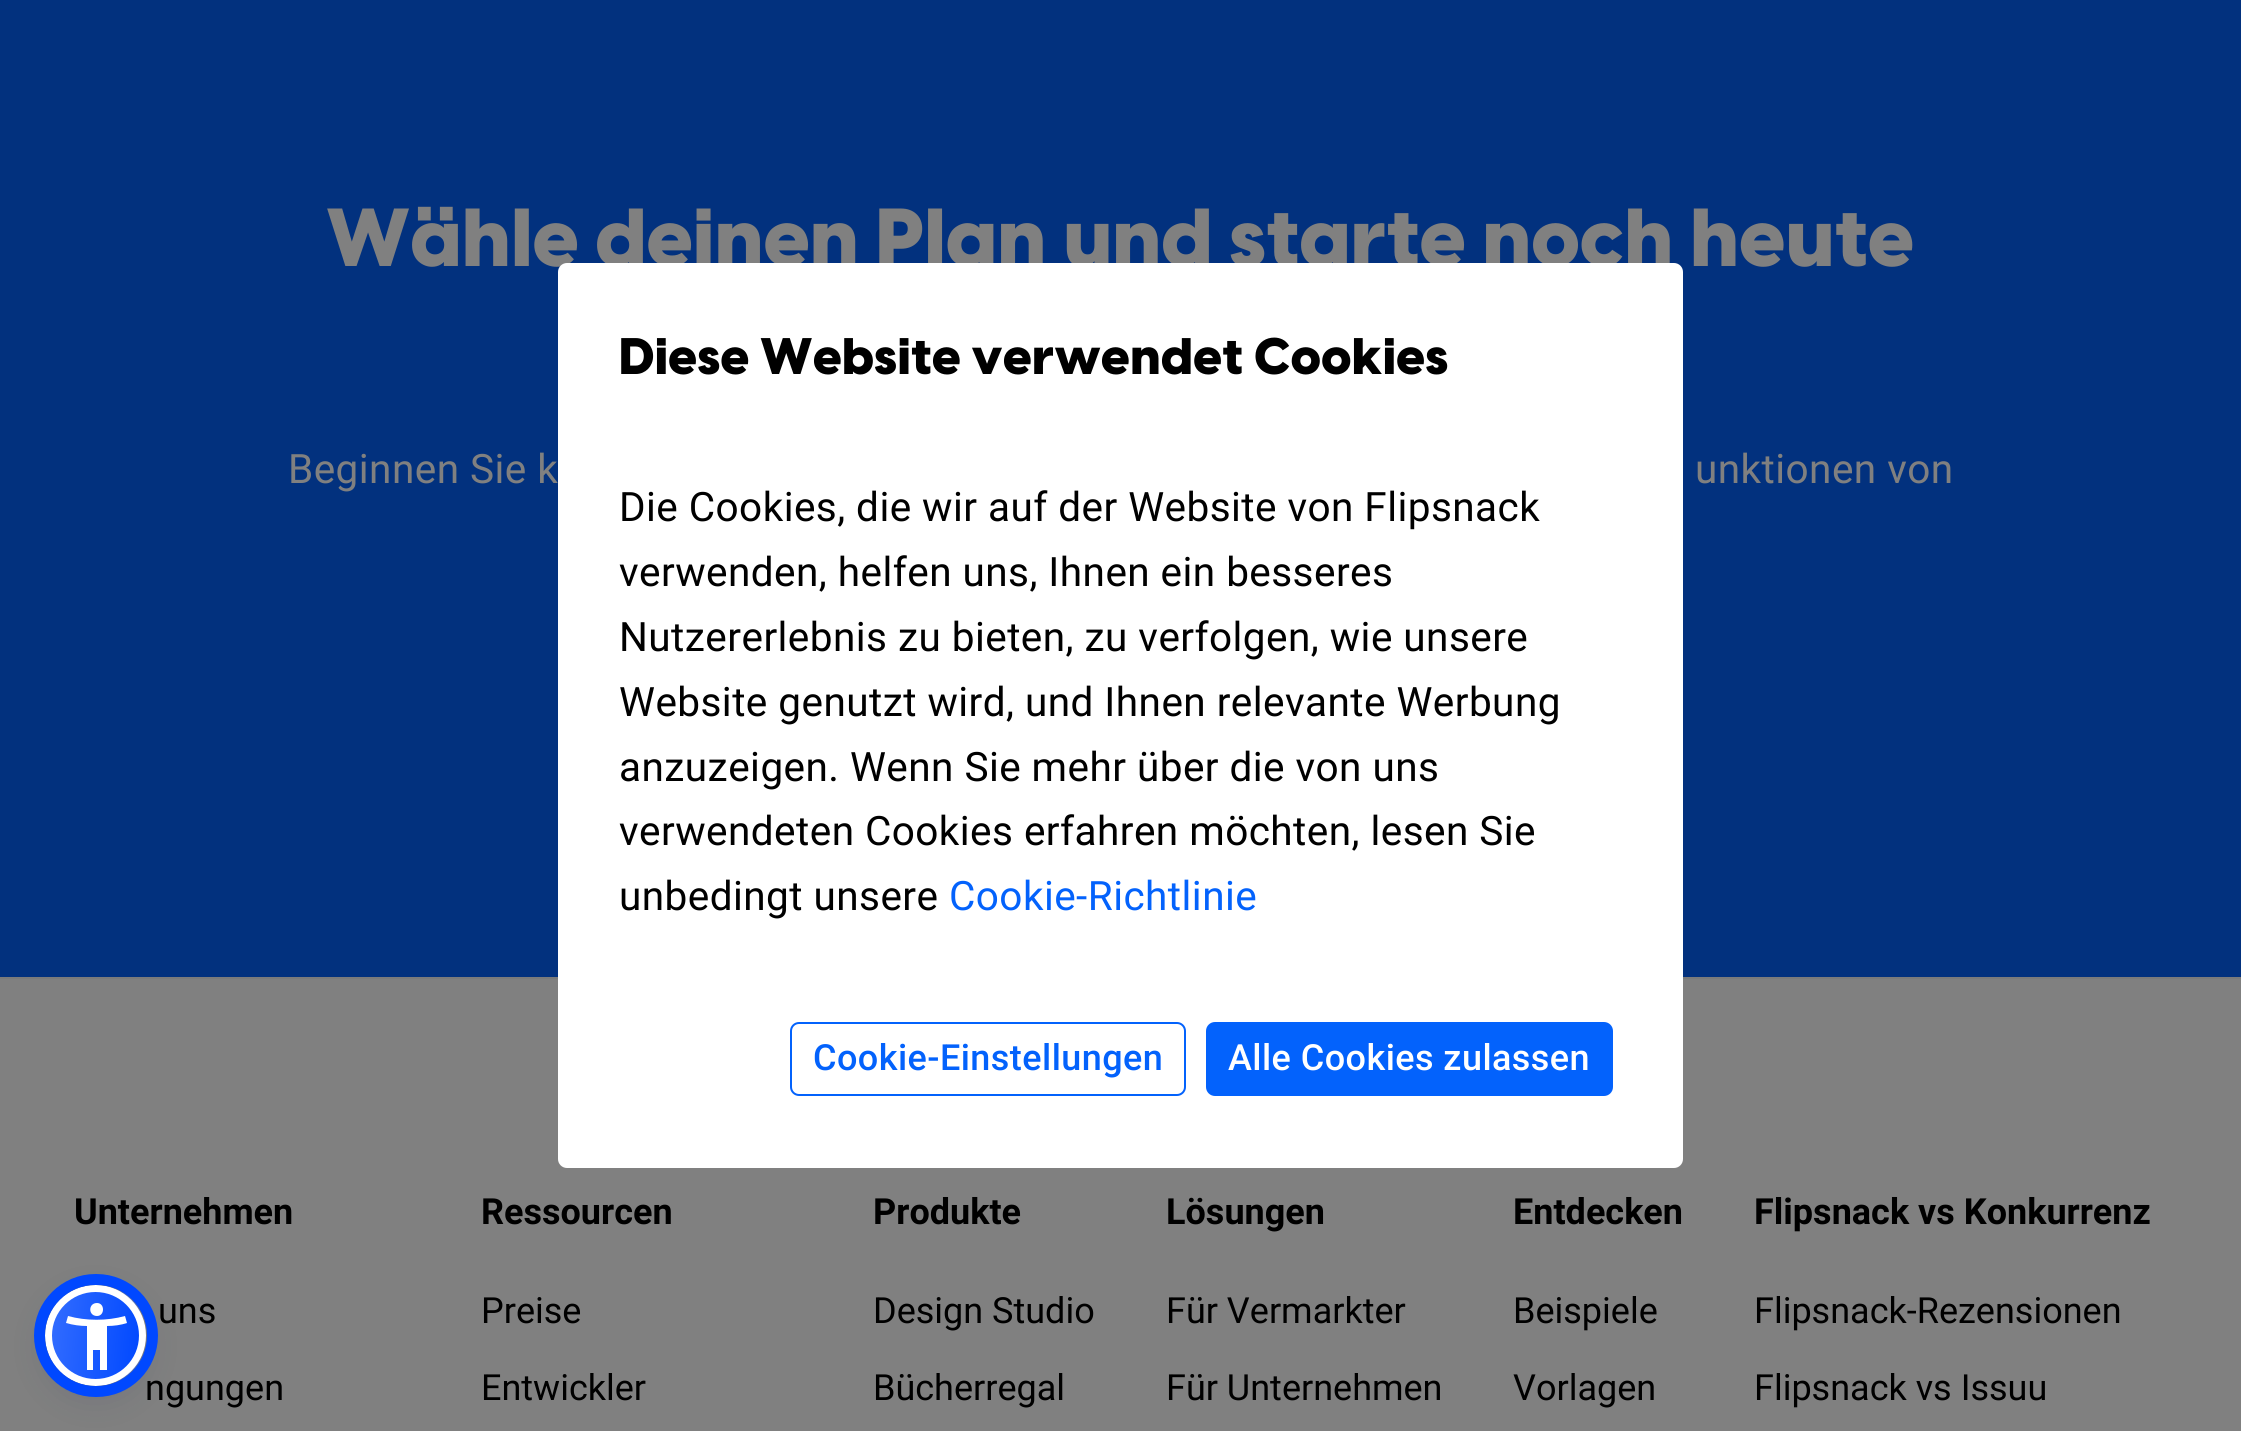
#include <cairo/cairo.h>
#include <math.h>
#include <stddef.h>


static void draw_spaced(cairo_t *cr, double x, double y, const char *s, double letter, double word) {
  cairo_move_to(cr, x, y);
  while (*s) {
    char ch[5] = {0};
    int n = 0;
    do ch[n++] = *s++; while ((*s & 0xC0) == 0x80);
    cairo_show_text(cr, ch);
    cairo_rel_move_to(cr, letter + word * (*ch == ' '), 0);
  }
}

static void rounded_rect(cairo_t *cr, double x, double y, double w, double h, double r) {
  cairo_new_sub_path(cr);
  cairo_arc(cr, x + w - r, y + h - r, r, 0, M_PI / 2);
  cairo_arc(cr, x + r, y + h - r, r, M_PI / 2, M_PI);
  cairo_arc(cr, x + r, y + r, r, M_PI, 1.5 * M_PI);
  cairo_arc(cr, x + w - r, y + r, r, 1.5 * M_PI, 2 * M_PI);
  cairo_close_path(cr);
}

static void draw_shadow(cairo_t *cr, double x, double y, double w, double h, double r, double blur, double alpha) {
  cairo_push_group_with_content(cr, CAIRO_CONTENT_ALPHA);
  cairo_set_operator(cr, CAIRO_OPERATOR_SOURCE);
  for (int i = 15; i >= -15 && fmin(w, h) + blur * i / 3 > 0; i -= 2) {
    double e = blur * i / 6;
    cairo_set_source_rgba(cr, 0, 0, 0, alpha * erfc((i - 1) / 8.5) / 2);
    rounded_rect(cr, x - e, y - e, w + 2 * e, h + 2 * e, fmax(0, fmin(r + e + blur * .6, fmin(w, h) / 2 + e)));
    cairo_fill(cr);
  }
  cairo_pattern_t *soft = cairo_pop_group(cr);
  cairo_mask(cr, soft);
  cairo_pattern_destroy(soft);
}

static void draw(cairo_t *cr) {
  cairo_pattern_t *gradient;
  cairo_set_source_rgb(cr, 128 / 255.0, 128 / 255.0, 128 / 255.0);
  cairo_paint(cr);
  cairo_set_source_rgb(cr, 2 / 255.0, 49 / 255.0, 126 / 255.0);
  cairo_rectangle(cr, 0, 0, 2241, 977);
  cairo_fill(cr);
  cairo_set_source_rgb(cr, 123 / 255.0, 123 / 255.0, 123 / 255.0);
  cairo_rectangle(cr, 0, 977, 2241, 2);
  cairo_fill(cr);
  cairo_set_source_rgb(cr, 37 / 255.0, 44 / 255.0, 97 / 255.0);
  draw_shadow(cr, 45, 1296, 101, 101, 50.5, 17, 0.15);
  cairo_save(cr);
  rounded_rect(cr, 45, 1285, 101, 101, 50.5);
  cairo_clip(cr);
  gradient = cairo_pattern_create_linear(48, 1330, 144, 1340);
  cairo_pattern_add_color_stop_rgba(gradient, 0, 50 / 255.0, 108 / 255.0, 1, 1);
  cairo_pattern_add_color_stop_rgba(gradient, 1, 0, 72 / 255.0, 1, 1);
  cairo_set_source(cr, gradient);
  cairo_pattern_destroy(gradient);
  cairo_rectangle(cr, 52, 1292, 88, 87);
  cairo_fill(cr);
  cairo_restore(cr);
  cairo_arc(cr, 95.5, 1335.5, 47, 0, 2 * M_PI);
  cairo_set_source_rgb(cr, 1, 1, 1);
  cairo_set_line_width(cr, 7);
  cairo_stroke(cr);
  cairo_select_font_face(cr, "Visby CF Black", CAIRO_FONT_SLANT_NORMAL, CAIRO_FONT_WEIGHT_NORMAL);
  cairo_set_font_size(cr, 81);
  cairo_set_source_rgb(cr, 128 / 255.0, 128 / 255.0, 128 / 255.0);
  draw_spaced(cr, 326, 266, "Wähle deinen Plan und starte noch heute", 0.45, 0);
  cairo_select_font_face(cr, "Roboto", CAIRO_FONT_SLANT_NORMAL, CAIRO_FONT_WEIGHT_NORMAL);
  cairo_set_font_size(cr, 40.5);
  draw_spaced(cr, 288, 483, "Beginnen Sie k", 0.45, 0);
  draw_spaced(cr, 1695, 483, "unktionen von", 0.45, 0);
  cairo_select_font_face(cr, "Roboto", CAIRO_FONT_SLANT_NORMAL, CAIRO_FONT_WEIGHT_BOLD);
  cairo_set_font_size(cr, 36);
  cairo_set_source_rgb(cr, 0, 0, 0);
  cairo_move_to(cr, 74, 1224);
  cairo_show_text(cr, "Unternehmen");
  cairo_select_font_face(cr, "Roboto", CAIRO_FONT_SLANT_NORMAL, CAIRO_FONT_WEIGHT_NORMAL);
  cairo_move_to(cr, 158, 1323);
  cairo_show_text(cr, "uns");
  cairo_move_to(cr, 145, 1400);
  cairo_show_text(cr, "ngungen");
  cairo_select_font_face(cr, "Roboto", CAIRO_FONT_SLANT_NORMAL, CAIRO_FONT_WEIGHT_BOLD);
  cairo_move_to(cr, 481, 1224);
  cairo_show_text(cr, "Ressourcen");
  cairo_select_font_face(cr, "Roboto", CAIRO_FONT_SLANT_NORMAL, CAIRO_FONT_WEIGHT_NORMAL);
  cairo_move_to(cr, 481, 1323);
  cairo_show_text(cr, "Preise");
  cairo_move_to(cr, 481, 1400);
  cairo_show_text(cr, "Entwickler");
  cairo_select_font_face(cr, "Roboto", CAIRO_FONT_SLANT_NORMAL, CAIRO_FONT_WEIGHT_BOLD);
  cairo_move_to(cr, 873, 1224);
  cairo_show_text(cr, "Produkte");
  cairo_select_font_face(cr, "Roboto", CAIRO_FONT_SLANT_NORMAL, CAIRO_FONT_WEIGHT_NORMAL);
  cairo_move_to(cr, 873, 1323);
  cairo_show_text(cr, "Design Studio");
  cairo_move_to(cr, 873, 1400);
  cairo_show_text(cr, "Bücherregal");
  cairo_select_font_face(cr, "Roboto", CAIRO_FONT_SLANT_NORMAL, CAIRO_FONT_WEIGHT_BOLD);
  cairo_move_to(cr, 1166, 1224);
  cairo_show_text(cr, "Lösungen");
  cairo_select_font_face(cr, "Roboto", CAIRO_FONT_SLANT_NORMAL, CAIRO_FONT_WEIGHT_NORMAL);
  cairo_move_to(cr, 1166, 1323);
  cairo_show_text(cr, "Für Vermarkter");
  cairo_move_to(cr, 1166, 1400);
  cairo_show_text(cr, "Für Unternehmen");
  cairo_select_font_face(cr, "Roboto", CAIRO_FONT_SLANT_NORMAL, CAIRO_FONT_WEIGHT_BOLD);
  cairo_move_to(cr, 1513, 1224);
  cairo_show_text(cr, "Entdecken");
  cairo_select_font_face(cr, "Roboto", CAIRO_FONT_SLANT_NORMAL, CAIRO_FONT_WEIGHT_NORMAL);
  cairo_move_to(cr, 1513, 1323);
  cairo_show_text(cr, "Beispiele");
  cairo_move_to(cr, 1513, 1400);
  cairo_show_text(cr, "Vorlagen");
  cairo_select_font_face(cr, "Roboto", CAIRO_FONT_SLANT_NORMAL, CAIRO_FONT_WEIGHT_BOLD);
  cairo_move_to(cr, 1754, 1224);
  cairo_show_text(cr, "Flipsnack vs Konkurrenz");
  cairo_select_font_face(cr, "Roboto", CAIRO_FONT_SLANT_NORMAL, CAIRO_FONT_WEIGHT_NORMAL);
  cairo_move_to(cr, 1754, 1323);
  cairo_show_text(cr, "Flipsnack-Rezensionen");
  cairo_move_to(cr, 1754, 1400);
  cairo_show_text(cr, "Flipsnack vs Issuu");
  cairo_set_source_rgb(cr, 1, 1, 1);
  rounded_rect(cr, 558, 263, 1125, 905, 9);
  cairo_fill(cr);
  cairo_select_font_face(cr, "Visby CF Black", CAIRO_FONT_SLANT_NORMAL, CAIRO_FONT_WEIGHT_NORMAL);
  cairo_set_font_size(cr, 50.6);
  cairo_set_source_rgb(cr, 0, 0, 0);
  draw_spaced(cr, 619, 374, "Diese Website verwendet Cookies", 0.45, 0);
  cairo_select_font_face(cr, "Roboto", CAIRO_FONT_SLANT_NORMAL, CAIRO_FONT_WEIGHT_NORMAL);
  cairo_set_font_size(cr, 40.5);
  draw_spaced(cr, 619, 521, "Die Cookies, die wir auf der Website von Flipsnack", 0.45, 0);
  draw_spaced(cr, 619, 586, "verwenden, helfen uns, Ihnen ein besseres", 0.45, 0);
  draw_spaced(cr, 619, 651, "Nutzererlebnis zu bieten, zu verfolgen, wie unsere", 0.45, 0);
  draw_spaced(cr, 619, 716, "Website genutzt wird, und Ihnen relevante Werbung", 0.45, 0);
  draw_spaced(cr, 619, 781, "anzuzeigen. Wenn Sie mehr über die von uns", 0.45, 0);
  draw_spaced(cr, 619, 845, "verwendeten Cookies erfahren möchten, lesen Sie", 0.45, 0);
  draw_spaced(cr, 619, 910, "unbedingt unsere", 0.45, 0);
  cairo_set_source_rgb(cr, 3 / 255.0, 98 / 255.0, 252 / 255.0);
  draw_spaced(cr, 949, 910, "Cookie-Richtlinie", 0.45, 0);
  rounded_rect(cr, 791, 1023, 394, 72, 8);
  cairo_set_line_width(cr, 2);
  cairo_stroke(cr);
  cairo_select_font_face(cr, "Roboto Medium", CAIRO_FONT_SLANT_NORMAL, CAIRO_FONT_WEIGHT_NORMAL);
  cairo_set_font_size(cr, 36);
  draw_spaced(cr, 813, 1070, "Cookie-Einstellungen", 0.45, 0);
  rounded_rect(cr, 1207, 1023, 405, 72, 8);
  cairo_fill_preserve(cr);
  cairo_stroke(cr);
  cairo_set_source_rgb(cr, 1, 1, 1);
  draw_spaced(cr, 1228, 1070, "Alle Cookies zulassen", 0.45, 0);
  rounded_rect(cr, 39.5, 1279.5, 113, 112, 56);
  cairo_set_source_rgb(cr, 0, 72 / 255.0, 1);
  cairo_set_line_width(cr, 11);
  cairo_stroke(cr);
  cairo_set_source_rgb(cr, 1, 1, 1);
  cairo_new_path(cr);
  cairo_move_to(cr, 125, 1316);
  cairo_curve_to(cr, 107, 1321, 86, 1321, 68, 1316);
  cairo_line_to(cr, 66, 1323);
  cairo_curve_to(cr, 73, 1325, 80, 1326, 87, 1326);
  cairo_line_to(cr, 87, 1370);
  cairo_line_to(cr, 93, 1370);
  cairo_line_to(cr, 93, 1350);
  cairo_line_to(cr, 100, 1350);
  cairo_line_to(cr, 100, 1370);
  cairo_line_to(cr, 107, 1370);
  cairo_line_to(cr, 107, 1326);
  cairo_curve_to(cr, 114, 1326, 121, 1325, 127, 1323);
  cairo_close_path(cr);
  cairo_move_to(cr, 97, 1316);
  cairo_curve_to(cr, 105, 1316, 105, 1303, 97, 1303);
  cairo_curve_to(cr, 88, 1303, 88, 1316, 97, 1316);
  cairo_close_path(cr);
  cairo_fill(cr);
}

int main(void) {
  cairo_surface_t *surface = cairo_image_surface_create(CAIRO_FORMAT_RGB24, 2241, 1431);
  cairo_t *cr = cairo_create(surface);
  cairo_font_options_t *options = cairo_font_options_create();
  cairo_font_options_set_hint_metrics(options, CAIRO_HINT_METRICS_OFF);
  cairo_font_options_set_hint_style(options, CAIRO_HINT_STYLE_NONE);
  cairo_set_font_options(cr, options);
  cairo_set_miter_limit(cr, 4);
  draw(cr);
  cairo_surface_write_to_png(surface, "out.png");
  cairo_font_options_destroy(options);
  cairo_destroy(cr);
  cairo_surface_destroy(surface);
  return 0;
}
